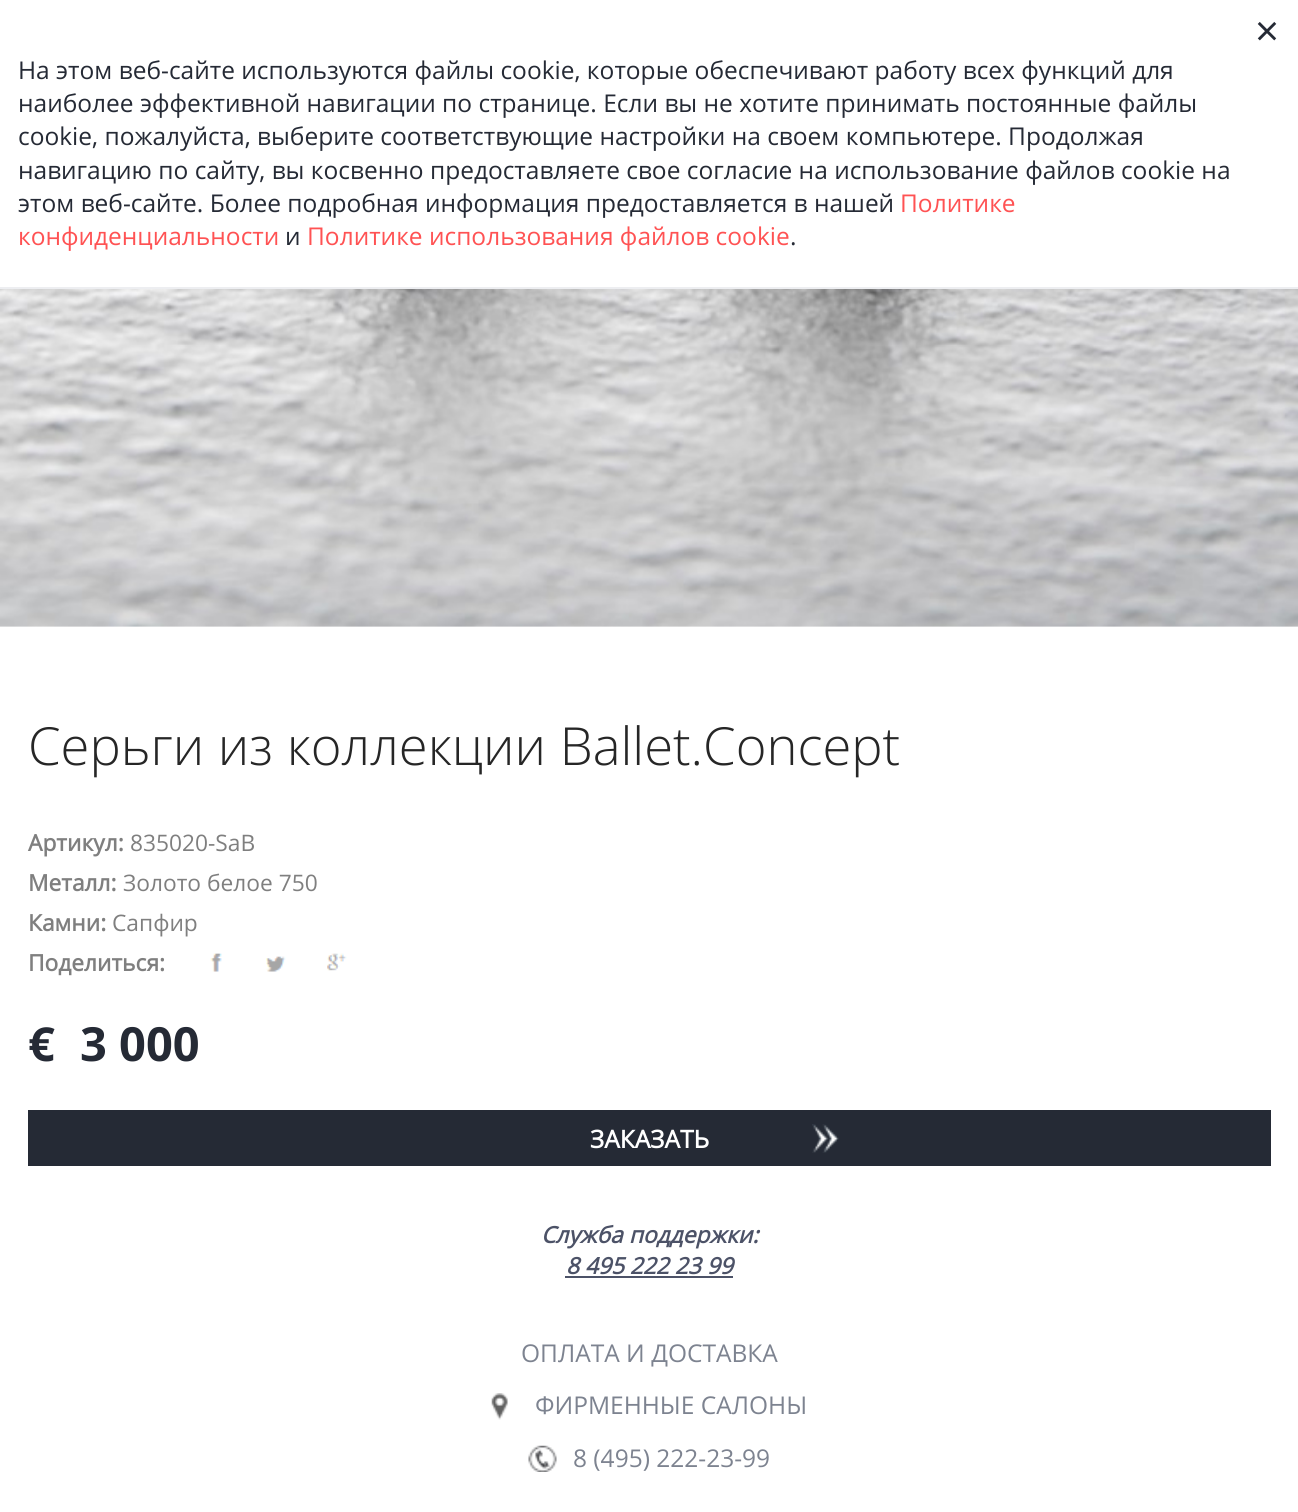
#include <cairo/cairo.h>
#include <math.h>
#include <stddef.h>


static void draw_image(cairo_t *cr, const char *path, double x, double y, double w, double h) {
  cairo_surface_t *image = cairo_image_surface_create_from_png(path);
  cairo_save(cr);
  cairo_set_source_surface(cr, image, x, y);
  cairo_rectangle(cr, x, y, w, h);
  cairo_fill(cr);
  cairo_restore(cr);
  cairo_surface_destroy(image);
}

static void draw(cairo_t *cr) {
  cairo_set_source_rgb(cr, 1, 1, 1);
  cairo_paint(cr);
  cairo_set_source_rgb(cr, 237 / 255.0, 238 / 255.0, 241 / 255.0);
  cairo_rectangle(cr, 0, 287, 1298, 2);
  cairo_fill(cr);
  draw_image(cr, "images/1.png", 0, 289, 1298, 338);
  draw_image(cr, "images/2.png", 210, 953, 12, 19);
  draw_image(cr, "images/3.png", 266, 956, 20, 16);
  draw_image(cr, "images/4.png", 327, 953, 20, 18);
  cairo_set_source_rgb(cr, 37 / 255.0, 42 / 255.0, 53 / 255.0);
  cairo_rectangle(cr, 28, 1110, 1243, 56);
  cairo_fill(cr);
  draw_image(cr, "images/5.png", 812, 1124, 27, 29);
  cairo_set_source_rgb(cr, 76 / 255.0, 82 / 255.0, 103 / 255.0);
  cairo_rectangle(cr, 565, 1276, 168, 2);
  cairo_fill(cr);
  draw_image(cr, "images/6.png", 491, 1393, 17, 27);
  draw_image(cr, "images/7.png", 528, 1445, 29, 27);
  cairo_select_font_face(cr, "Open Sans", CAIRO_FONT_SLANT_NORMAL, CAIRO_FONT_WEIGHT_NORMAL);
  cairo_set_font_size(cr, 42);
  cairo_set_source_rgb(cr, 37 / 255.0, 42 / 255.0, 53 / 255.0);
  cairo_move_to(cr, 1255, 46);
  cairo_show_text(cr, "×");
  cairo_set_font_size(cr, 24.5);
  cairo_move_to(cr, 18, 79);
  cairo_show_text(cr, "На этом веб-сайте используются файлы cookie, которые обеспечивают работу всех функций для");
  cairo_move_to(cr, 18, 112);
  cairo_show_text(cr, "наиболее эффективной навигации по странице. Если вы не хотите принимать постоянные файлы");
  cairo_move_to(cr, 18, 145);
  cairo_show_text(cr, "cookie, пожалуйста, выберите соответствующие настройки на своем компьютере. Продолжая");
  cairo_move_to(cr, 18, 179);
  cairo_show_text(cr, "навигацию по сайту, вы косвенно предоставляете свое согласие на использование файлов cookie на");
  cairo_move_to(cr, 18, 212);
  cairo_show_text(cr, "этом веб-сайте. Более подробная информация предоставляется в нашей");
  cairo_set_source_rgb(cr, 1, 82 / 255.0, 83 / 255.0);
  cairo_move_to(cr, 900, 212);
  cairo_show_text(cr, "Политике");
  cairo_move_to(cr, 18, 245);
  cairo_show_text(cr, "конфиденциальности");
  cairo_set_source_rgb(cr, 37 / 255.0, 42 / 255.0, 53 / 255.0);
  cairo_move_to(cr, 285, 245);
  cairo_show_text(cr, "и");
  cairo_set_source_rgb(cr, 1, 82 / 255.0, 83 / 255.0);
  cairo_move_to(cr, 307, 245);
  cairo_show_text(cr, "Политике использования файлов сookie");
  cairo_set_source_rgb(cr, 37 / 255.0, 42 / 255.0, 53 / 255.0);
  cairo_move_to(cr, 790, 245);
  cairo_show_text(cr, ".");
  cairo_select_font_face(cr, "Open Sans Light", CAIRO_FONT_SLANT_NORMAL, CAIRO_FONT_WEIGHT_NORMAL);
  cairo_set_font_size(cr, 52.5);
  cairo_set_source_rgb(cr, 38 / 255.0, 38 / 255.0, 38 / 255.0);
  cairo_move_to(cr, 28, 765);
  cairo_show_text(cr, "Серьги из коллекции Ballet.Concept");
  cairo_select_font_face(cr, "Open Sans", CAIRO_FONT_SLANT_NORMAL, CAIRO_FONT_WEIGHT_BOLD);
  cairo_set_font_size(cr, 22.75);
  cairo_set_source_rgb(cr, 127 / 255.0, 127 / 255.0, 127 / 255.0);
  cairo_move_to(cr, 28, 851);
  cairo_show_text(cr, "Артикул:");
  cairo_select_font_face(cr, "Open Sans", CAIRO_FONT_SLANT_NORMAL, CAIRO_FONT_WEIGHT_NORMAL);
  cairo_move_to(cr, 130, 851);
  cairo_show_text(cr, "835020-SaB");
  cairo_select_font_face(cr, "Open Sans", CAIRO_FONT_SLANT_NORMAL, CAIRO_FONT_WEIGHT_BOLD);
  cairo_move_to(cr, 28, 891);
  cairo_show_text(cr, "Металл:");
  cairo_select_font_face(cr, "Open Sans", CAIRO_FONT_SLANT_NORMAL, CAIRO_FONT_WEIGHT_NORMAL);
  cairo_move_to(cr, 123, 891);
  cairo_show_text(cr, "Золото белое 750");
  cairo_select_font_face(cr, "Open Sans", CAIRO_FONT_SLANT_NORMAL, CAIRO_FONT_WEIGHT_BOLD);
  cairo_move_to(cr, 28, 931);
  cairo_show_text(cr, "Камни:");
  cairo_select_font_face(cr, "Open Sans", CAIRO_FONT_SLANT_NORMAL, CAIRO_FONT_WEIGHT_NORMAL);
  cairo_move_to(cr, 112, 931);
  cairo_show_text(cr, "Сапфир");
  cairo_select_font_face(cr, "Open Sans", CAIRO_FONT_SLANT_NORMAL, CAIRO_FONT_WEIGHT_BOLD);
  cairo_move_to(cr, 28, 971);
  cairo_show_text(cr, "Поделиться:");
  cairo_select_font_face(cr, "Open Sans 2", CAIRO_FONT_SLANT_NORMAL, CAIRO_FONT_WEIGHT_BOLD);
  cairo_set_font_size(cr, 47);
  cairo_set_source_rgb(cr, 37 / 255.0, 42 / 255.0, 53 / 255.0);
  cairo_move_to(cr, 28, 1061);
  cairo_show_text(cr, "€");
  cairo_move_to(cr, 80, 1061);
  cairo_show_text(cr, "3 000");
  cairo_select_font_face(cr, "Open Sans", CAIRO_FONT_SLANT_NORMAL, CAIRO_FONT_WEIGHT_BOLD);
  cairo_set_font_size(cr, 24.5);
  cairo_set_source_rgb(cr, 1, 1, 1);
  cairo_move_to(cr, 590, 1148);
  cairo_show_text(cr, "ЗАКАЗАТЬ");
  cairo_select_font_face(cr, "Open Sans", CAIRO_FONT_SLANT_ITALIC, CAIRO_FONT_WEIGHT_BOLD);
  cairo_set_font_size(cr, 22.75);
  cairo_set_source_rgb(cr, 76 / 255.0, 82 / 255.0, 103 / 255.0);
  cairo_move_to(cr, 541, 1243);
  cairo_show_text(cr, "Служба поддержки:");
  cairo_move_to(cr, 566, 1274);
  cairo_show_text(cr, "8 495 222 23 99");
  cairo_select_font_face(cr, "Open Sans", CAIRO_FONT_SLANT_NORMAL, CAIRO_FONT_WEIGHT_NORMAL);
  cairo_set_font_size(cr, 24.5);
  cairo_set_source_rgb(cr, 125 / 255.0, 131 / 255.0, 144 / 255.0);
  cairo_move_to(cr, 521, 1362);
  cairo_show_text(cr, "ОПЛАТА И ДОСТАВКА");
  cairo_move_to(cr, 535, 1414);
  cairo_show_text(cr, "ФИРМЕННЫЕ САЛОНЫ");
  cairo_move_to(cr, 573, 1467);
  cairo_show_text(cr, "8 (495) 222-23-99");
}

int main(void) {
  cairo_surface_t *surface = cairo_image_surface_create(CAIRO_FORMAT_RGB24, 1298, 1512);
  cairo_t *cr = cairo_create(surface);
  cairo_font_options_t *options = cairo_font_options_create();
  cairo_font_options_set_hint_metrics(options, CAIRO_HINT_METRICS_OFF);
  cairo_font_options_set_hint_style(options, CAIRO_HINT_STYLE_NONE);
  cairo_set_font_options(cr, options);
  cairo_set_miter_limit(cr, 4);
  draw(cr);
  cairo_surface_write_to_png(surface, "out.png");
  cairo_font_options_destroy(options);
  cairo_destroy(cr);
  cairo_surface_destroy(surface);
  return 0;
}
